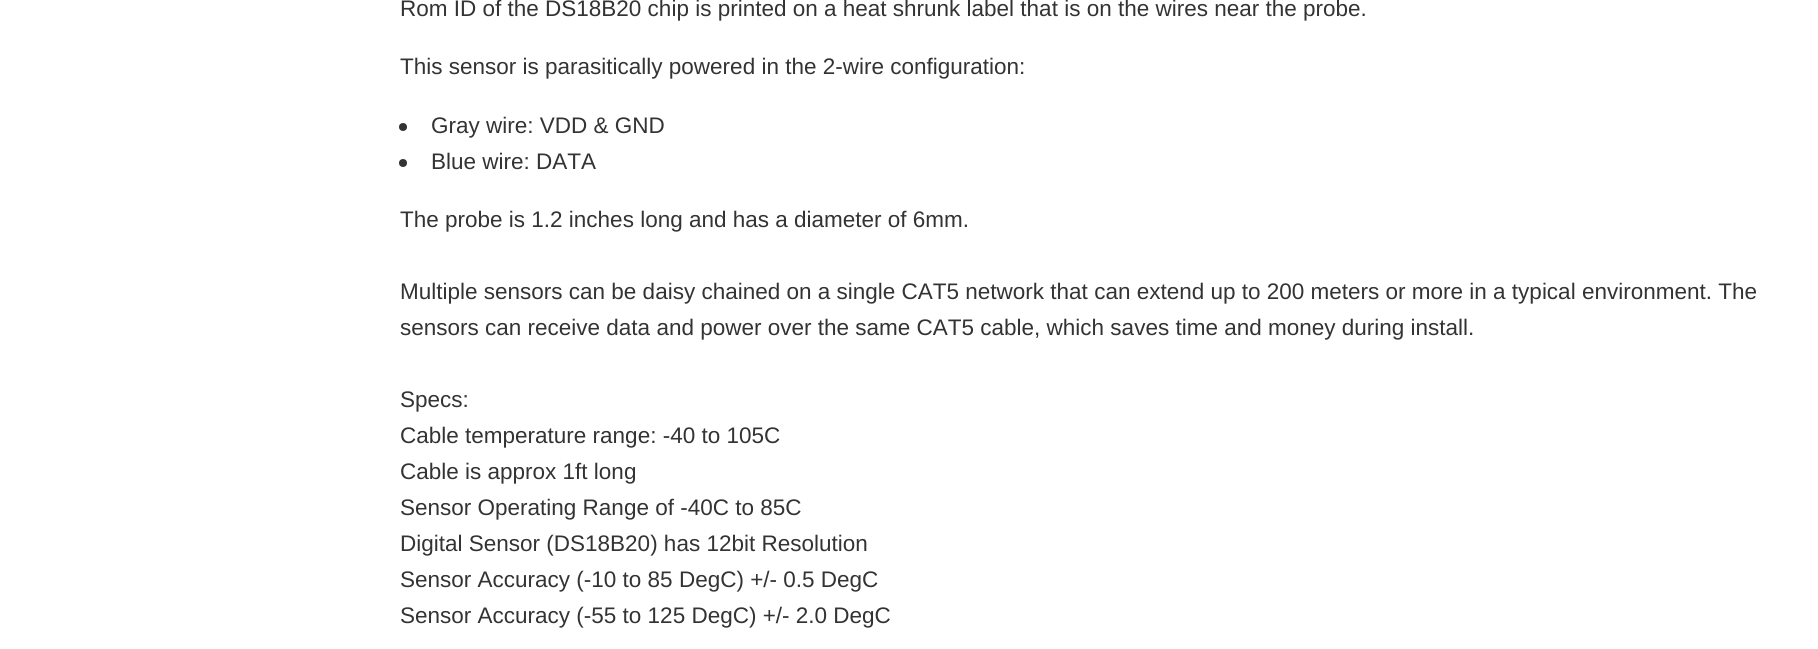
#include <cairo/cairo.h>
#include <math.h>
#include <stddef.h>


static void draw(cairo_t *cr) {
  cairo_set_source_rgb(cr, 1, 1, 1);
  cairo_paint(cr);
  cairo_set_source_rgb(cr, 51 / 255.0, 51 / 255.0, 51 / 255.0);
  cairo_arc(cr, 403, 127, 4, 0, 2 * M_PI);
  cairo_fill(cr);
  cairo_arc(cr, 403, 163, 4, 0, 2 * M_PI);
  cairo_fill(cr);
  cairo_select_font_face(cr, "Liberation Sans", CAIRO_FONT_SLANT_NORMAL, CAIRO_FONT_WEIGHT_NORMAL);
  cairo_set_font_size(cr, 22.5);
  cairo_move_to(cr, 400, 16);
  cairo_show_text(cr, "Rom ID of the DS18B20 chip is printed on a heat shrunk label that is on the wires near the probe.");
  cairo_move_to(cr, 400, 74);
  cairo_show_text(cr, "This sensor is parasitically powered in the 2-wire configuration:");
  cairo_move_to(cr, 431, 133);
  cairo_show_text(cr, "Gray wire: VDD & GND");
  cairo_move_to(cr, 431, 169);
  cairo_show_text(cr, "Blue wire: DATA");
  cairo_move_to(cr, 400, 227);
  cairo_show_text(cr, "The probe is 1.2 inches long and has a diameter of 6mm.");
  cairo_move_to(cr, 400, 299);
  cairo_show_text(cr, "Multiple sensors can be daisy chained on a single CAT5 network that can extend up to 200 meters or more in a typical environment. The");
  cairo_move_to(cr, 400, 335);
  cairo_show_text(cr, "sensors can receive data and power over the same CAT5 cable, which saves time and money during install.");
  cairo_move_to(cr, 400, 407);
  cairo_show_text(cr, "Specs:");
  cairo_move_to(cr, 400, 443);
  cairo_show_text(cr, "Cable temperature range: -40 to 105C");
  cairo_move_to(cr, 400, 479);
  cairo_show_text(cr, "Cable is approx 1ft long");
  cairo_move_to(cr, 400, 515);
  cairo_show_text(cr, "Sensor Operating Range of -40C to 85C");
  cairo_move_to(cr, 400, 551);
  cairo_show_text(cr, "Digital Sensor (DS18B20) has 12bit Resolution");
  cairo_move_to(cr, 400, 587);
  cairo_show_text(cr, "Sensor Accuracy (-10 to 85 DegC) +/- 0.5 DegC");
  cairo_move_to(cr, 400, 623);
  cairo_show_text(cr, "Sensor Accuracy (-55 to 125 DegC) +/- 2.0 DegC");
}

int main(void) {
  cairo_surface_t *surface = cairo_image_surface_create(CAIRO_FORMAT_RGB24, 1818, 649);
  cairo_t *cr = cairo_create(surface);
  cairo_font_options_t *options = cairo_font_options_create();
  cairo_font_options_set_hint_metrics(options, CAIRO_HINT_METRICS_OFF);
  cairo_font_options_set_hint_style(options, CAIRO_HINT_STYLE_NONE);
  cairo_set_font_options(cr, options);
  cairo_set_miter_limit(cr, 4);
  draw(cr);
  cairo_surface_write_to_png(surface, "out.png");
  cairo_font_options_destroy(options);
  cairo_destroy(cr);
  cairo_surface_destroy(surface);
  return 0;
}
